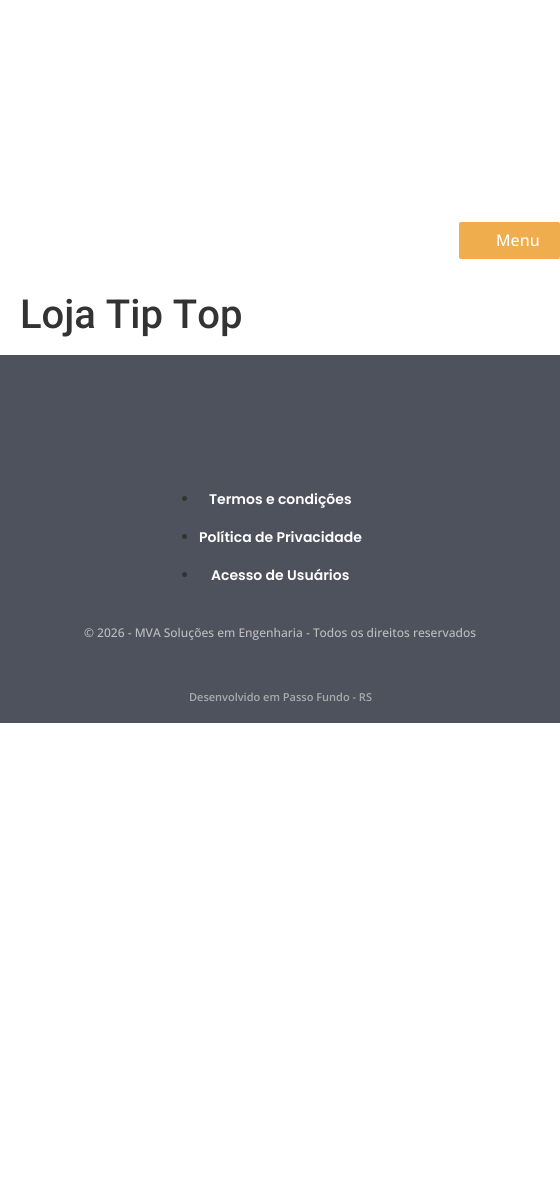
#include <cairo/cairo.h>
#include <math.h>
#include <stddef.h>


static void rounded_rect(cairo_t *cr, double x, double y, double w, double h, double r) {
  cairo_new_sub_path(cr);
  cairo_arc(cr, x + w - r, y + h - r, r, 0, M_PI / 2);
  cairo_arc(cr, x + r, y + h - r, r, M_PI / 2, M_PI);
  cairo_arc(cr, x + r, y + r, r, M_PI, 1.5 * M_PI);
  cairo_arc(cr, x + w - r, y + r, r, 1.5 * M_PI, 2 * M_PI);
  cairo_close_path(cr);
}

static void draw(cairo_t *cr) {
  cairo_set_source_rgb(cr, 1, 1, 1);
  cairo_paint(cr);
  cairo_set_source_rgb(cr, 240 / 255.0, 173 / 255.0, 78 / 255.0);
  rounded_rect(cr, 459, 222, 101, 37, 2);
  cairo_fill(cr);
  cairo_set_source_rgb(cr, 77 / 255.0, 82 / 255.0, 93 / 255.0);
  cairo_rectangle(cr, 0, 355, 560, 368);
  cairo_fill(cr);
  cairo_set_source_rgb(cr, 51 / 255.0, 51 / 255.0, 51 / 255.0);
  cairo_arc(cr, 184.5, 498.5, 2.5, 0, 2 * M_PI);
  cairo_fill(cr);
  cairo_arc(cr, 184.5, 536.5, 2.5, 0, 2 * M_PI);
  cairo_fill(cr);
  cairo_arc(cr, 184.5, 574.5, 2.5, 0, 2 * M_PI);
  cairo_fill(cr);
  cairo_select_font_face(cr, "Open Sans Medium", CAIRO_FONT_SLANT_NORMAL, CAIRO_FONT_WEIGHT_NORMAL);
  cairo_set_font_size(cr, 16);
  cairo_set_source_rgb(cr, 1, 1, 1);
  cairo_move_to(cr, 496, 246);
  cairo_show_text(cr, "Menu");
  cairo_select_font_face(cr, "Roboto Medium", CAIRO_FONT_SLANT_NORMAL, CAIRO_FONT_WEIGHT_NORMAL);
  cairo_set_font_size(cr, 40);
  cairo_set_source_rgb(cr, 51 / 255.0, 51 / 255.0, 51 / 255.0);
  cairo_move_to(cr, 20, 328);
  cairo_show_text(cr, "Loja Tip Top");
  cairo_select_font_face(cr, "Poppins SemiBold", CAIRO_FONT_SLANT_NORMAL, CAIRO_FONT_WEIGHT_NORMAL);
  cairo_set_font_size(cr, 14);
  cairo_set_source_rgb(cr, 1, 1, 1);
  cairo_move_to(cr, 209, 504);
  cairo_show_text(cr, "Termos e condições");
  cairo_move_to(cr, 199, 542);
  cairo_show_text(cr, "Política de Privacidade");
  cairo_move_to(cr, 211, 580);
  cairo_show_text(cr, "Acesso de Usuários");
  cairo_select_font_face(cr, "Open Sans Medium", CAIRO_FONT_SLANT_NORMAL, CAIRO_FONT_WEIGHT_NORMAL);
  cairo_set_font_size(cr, 12);
  cairo_set_source_rgb(cr, 189 / 255.0, 189 / 255.0, 189 / 255.0);
  cairo_move_to(cr, 84, 637);
  cairo_show_text(cr, "© 2026 - MVA Soluções em Engenharia - Todos os direitos reservados");
  cairo_select_font_face(cr, "Open Sans SemiBold", CAIRO_FONT_SLANT_NORMAL, CAIRO_FONT_WEIGHT_NORMAL);
  cairo_set_font_size(cr, 11);
  cairo_set_source_rgb(cr, 170 / 255.0, 170 / 255.0, 170 / 255.0);
  cairo_move_to(cr, 189, 701);
  cairo_show_text(cr, "Desenvolvido em Passo Fundo - RS");
}

int main(void) {
  cairo_surface_t *surface = cairo_image_surface_create(CAIRO_FORMAT_RGB24, 560, 1201);
  cairo_t *cr = cairo_create(surface);
  cairo_font_options_t *options = cairo_font_options_create();
  cairo_font_options_set_hint_metrics(options, CAIRO_HINT_METRICS_OFF);
  cairo_font_options_set_hint_style(options, CAIRO_HINT_STYLE_NONE);
  cairo_set_font_options(cr, options);
  cairo_set_miter_limit(cr, 4);
  draw(cr);
  cairo_surface_write_to_png(surface, "out.png");
  cairo_font_options_destroy(options);
  cairo_destroy(cr);
  cairo_surface_destroy(surface);
  return 0;
}
